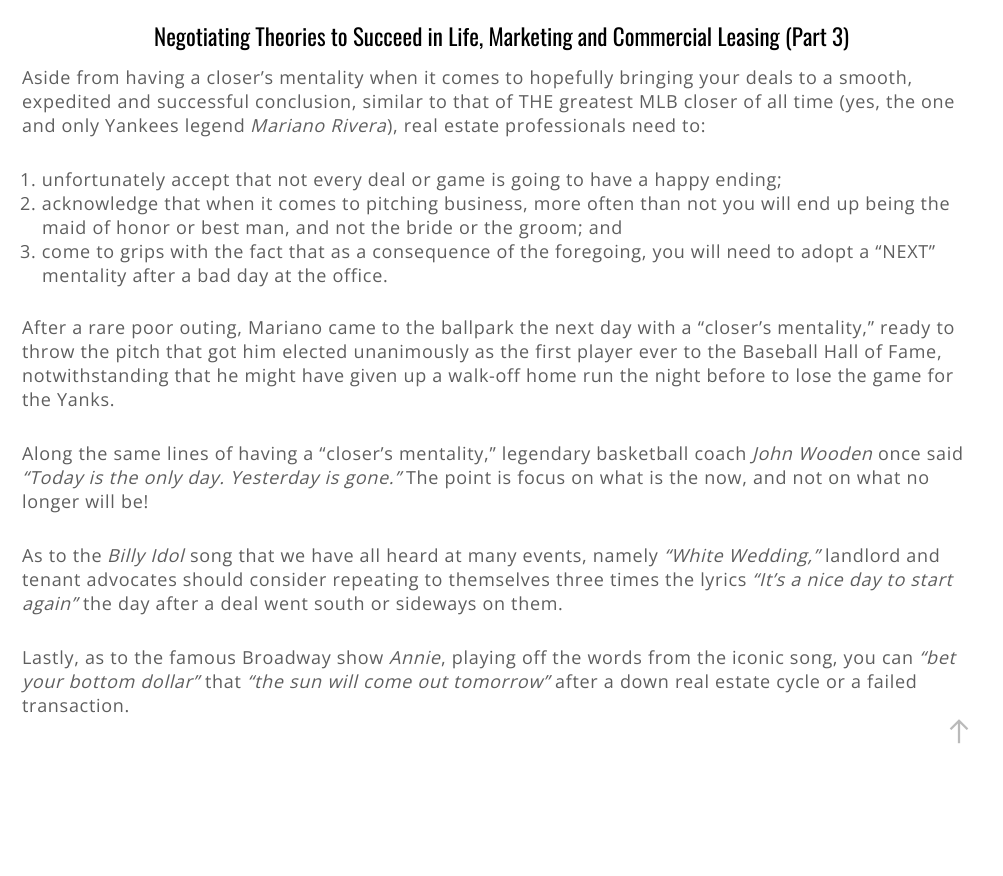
#include <cairo/cairo.h>
#include <math.h>
#include <stddef.h>


static void draw_spaced(cairo_t *cr, double x, double y, const char *s, double letter, double word) {
  cairo_move_to(cr, x, y);
  while (*s) {
    char ch[5] = {0};
    int n = 0;
    do ch[n++] = *s++; while ((*s & 0xC0) == 0x80);
    cairo_show_text(cr, ch);
    cairo_rel_move_to(cr, letter + word * (*ch == ' '), 0);
  }
}

static void draw_image(cairo_t *cr, const char *path, double x, double y, double w, double h) {
  cairo_surface_t *image = cairo_image_surface_create_from_png(path);
  cairo_save(cr);
  cairo_set_source_surface(cr, image, x, y);
  cairo_rectangle(cr, x, y, w, h);
  cairo_fill(cr);
  cairo_restore(cr);
  cairo_surface_destroy(image);
}

static void draw(cairo_t *cr) {
  cairo_set_source_rgb(cr, 1, 1, 1);
  cairo_paint(cr);
  draw_image(cr, "images/1.png", 949, 719, 20, 25);
  cairo_select_font_face(cr, "Oswald", CAIRO_FONT_SLANT_NORMAL, CAIRO_FONT_WEIGHT_NORMAL);
  cairo_set_font_size(cr, 23);
  cairo_set_source_rgb(cr, 0, 0, 0);
  cairo_move_to(cr, 154, 46);
  cairo_show_text(cr, "Negotiating Theories to Succeed in Life, Marketing and Commercial Leasing (Part 3)");
  cairo_select_font_face(cr, "Open Sans", CAIRO_FONT_SLANT_NORMAL, CAIRO_FONT_WEIGHT_NORMAL);
  cairo_set_font_size(cr, 18);
  cairo_set_source_rgb(cr, 94 / 255.0, 94 / 255.0, 94 / 255.0);
  draw_spaced(cr, 22, 84, "Aside from having a closer’s mentality when it comes to hopefully bringing your deals to a smooth,", 0.7, 0);
  draw_spaced(cr, 22, 108, "expedited and successful conclusion, similar to that of THE greatest MLB closer of all time (yes, the one", 0.7, 0);
  draw_spaced(cr, 22, 132, "and only Yankees legend", 0.7, 0);
  cairo_select_font_face(cr, "Open Sans", CAIRO_FONT_SLANT_ITALIC, CAIRO_FONT_WEIGHT_NORMAL);
  draw_spaced(cr, 250, 132, "Mariano Rivera", 0.7, 0);
  cairo_select_font_face(cr, "Open Sans", CAIRO_FONT_SLANT_NORMAL, CAIRO_FONT_WEIGHT_NORMAL);
  draw_spaced(cr, 387, 132, "), real estate professionals need to:", 0.7, 0);
  draw_spaced(cr, 20, 186, "1. unfortunately accept that not every deal or game is going to have a happy ending;", 0.7, 0);
  draw_spaced(cr, 20, 210, "2. acknowledge that when it comes to pitching business, more often than not you will end up being the", 0.7, 0);
  draw_spaced(cr, 42, 234, "maid of honor or best man, and not the bride or the groom; and", 0.7, 0);
  draw_spaced(cr, 20, 258, "3. come to grips with the fact that as a consequence of the foregoing, you will need to adopt a “NEXT”", 0.7, 0);
  draw_spaced(cr, 42, 282, "mentality after a bad day at the office.", 0.7, 0);
  draw_spaced(cr, 22, 334, "After a rare poor outing, Mariano came to the ballpark the next day with a “closer’s mentality,” ready to", 0.7, 0);
  draw_spaced(cr, 22, 358, "throw the pitch that got him elected unanimously as the first player ever to the Baseball Hall of Fame,", 0.7, 0);
  draw_spaced(cr, 22, 382, "notwithstanding that he might have given up a walk-off home run the night before to lose the game for", 0.7, 0);
  draw_spaced(cr, 22, 406, "the Yanks.", 0.7, 0);
  draw_spaced(cr, 22, 460, "Along the same lines of having a “closer’s mentality,” legendary basketball coach", 0.7, 0);
  cairo_select_font_face(cr, "Open Sans", CAIRO_FONT_SLANT_ITALIC, CAIRO_FONT_WEIGHT_NORMAL);
  draw_spaced(cr, 752, 460, "John Wooden", 0.7, 0);
  cairo_select_font_face(cr, "Open Sans", CAIRO_FONT_SLANT_NORMAL, CAIRO_FONT_WEIGHT_NORMAL);
  draw_spaced(cr, 878, 460, "once said", 0.7, 0);
  cairo_select_font_face(cr, "Open Sans", CAIRO_FONT_SLANT_ITALIC, CAIRO_FONT_WEIGHT_NORMAL);
  draw_spaced(cr, 22, 484, "“Today is the only day. Yesterday is gone.”", 0.7, 0);
  cairo_select_font_face(cr, "Open Sans", CAIRO_FONT_SLANT_NORMAL, CAIRO_FONT_WEIGHT_NORMAL);
  draw_spaced(cr, 406, 484, "The point is focus on what is the now, and not on what no", 0.7, 0);
  draw_spaced(cr, 22, 508, "longer will be!", 0.7, 0);
  draw_spaced(cr, 22, 562, "As to the", 0.7, 0);
  cairo_select_font_face(cr, "Open Sans", CAIRO_FONT_SLANT_ITALIC, CAIRO_FONT_WEIGHT_NORMAL);
  draw_spaced(cr, 107, 562, "Billy Idol", 0.7, 0);
  cairo_select_font_face(cr, "Open Sans", CAIRO_FONT_SLANT_NORMAL, CAIRO_FONT_WEIGHT_NORMAL);
  draw_spaced(cr, 190, 562, "song that we have all heard at many events, namely", 0.7, 0);
  cairo_select_font_face(cr, "Open Sans", CAIRO_FONT_SLANT_ITALIC, CAIRO_FONT_WEIGHT_NORMAL);
  draw_spaced(cr, 664, 562, "“White Wedding,”", 0.7, 0);
  cairo_select_font_face(cr, "Open Sans", CAIRO_FONT_SLANT_NORMAL, CAIRO_FONT_WEIGHT_NORMAL);
  draw_spaced(cr, 825, 562, "landlord and", 0.7, 0);
  draw_spaced(cr, 22, 586, "tenant advocates should consider repeating to themselves three times the lyrics", 0.7, 0);
  cairo_select_font_face(cr, "Open Sans", CAIRO_FONT_SLANT_ITALIC, CAIRO_FONT_WEIGHT_NORMAL);
  draw_spaced(cr, 752, 586, "“It’s a nice day to start", 0.7, 0);
  draw_spaced(cr, 22, 610, "again”", 0.7, 0);
  cairo_select_font_face(cr, "Open Sans", CAIRO_FONT_SLANT_NORMAL, CAIRO_FONT_WEIGHT_NORMAL);
  draw_spaced(cr, 83, 610, "the day after a deal went south or sideways on them.", 0.7, 0);
  draw_spaced(cr, 22, 664, "Lastly, as to the famous Broadway show", 0.7, 0);
  cairo_select_font_face(cr, "Open Sans", CAIRO_FONT_SLANT_ITALIC, CAIRO_FONT_WEIGHT_NORMAL);
  draw_spaced(cr, 389, 664, "Annie", 0.7, 0);
  cairo_select_font_face(cr, "Open Sans", CAIRO_FONT_SLANT_NORMAL, CAIRO_FONT_WEIGHT_NORMAL);
  draw_spaced(cr, 441, 664, ", playing off the words from the iconic song, you can", 0.7, 0);
  cairo_select_font_face(cr, "Open Sans", CAIRO_FONT_SLANT_ITALIC, CAIRO_FONT_WEIGHT_NORMAL);
  draw_spaced(cr, 919, 664, "“bet", 0.7, 0);
  draw_spaced(cr, 22, 688, "your bottom dollar”", 0.7, 0);
  cairo_select_font_face(cr, "Open Sans", CAIRO_FONT_SLANT_NORMAL, CAIRO_FONT_WEIGHT_NORMAL);
  draw_spaced(cr, 205, 688, "that", 0.7, 0);
  cairo_select_font_face(cr, "Open Sans", CAIRO_FONT_SLANT_ITALIC, CAIRO_FONT_WEIGHT_NORMAL);
  draw_spaced(cr, 247, 688, "“the sun will come out tomorrow”", 0.7, 0);
  cairo_select_font_face(cr, "Open Sans", CAIRO_FONT_SLANT_NORMAL, CAIRO_FONT_WEIGHT_NORMAL);
  draw_spaced(cr, 555, 688, "after a down real estate cycle or a failed", 0.7, 0);
  draw_spaced(cr, 22, 712, "transaction.", 0.7, 0);
}

int main(void) {
  cairo_surface_t *surface = cairo_image_surface_create(CAIRO_FORMAT_RGB24, 1003, 876);
  cairo_t *cr = cairo_create(surface);
  cairo_font_options_t *options = cairo_font_options_create();
  cairo_font_options_set_hint_metrics(options, CAIRO_HINT_METRICS_OFF);
  cairo_font_options_set_hint_style(options, CAIRO_HINT_STYLE_NONE);
  cairo_set_font_options(cr, options);
  cairo_set_miter_limit(cr, 4);
  draw(cr);
  cairo_surface_write_to_png(surface, "out.png");
  cairo_font_options_destroy(options);
  cairo_destroy(cr);
  cairo_surface_destroy(surface);
  return 0;
}
